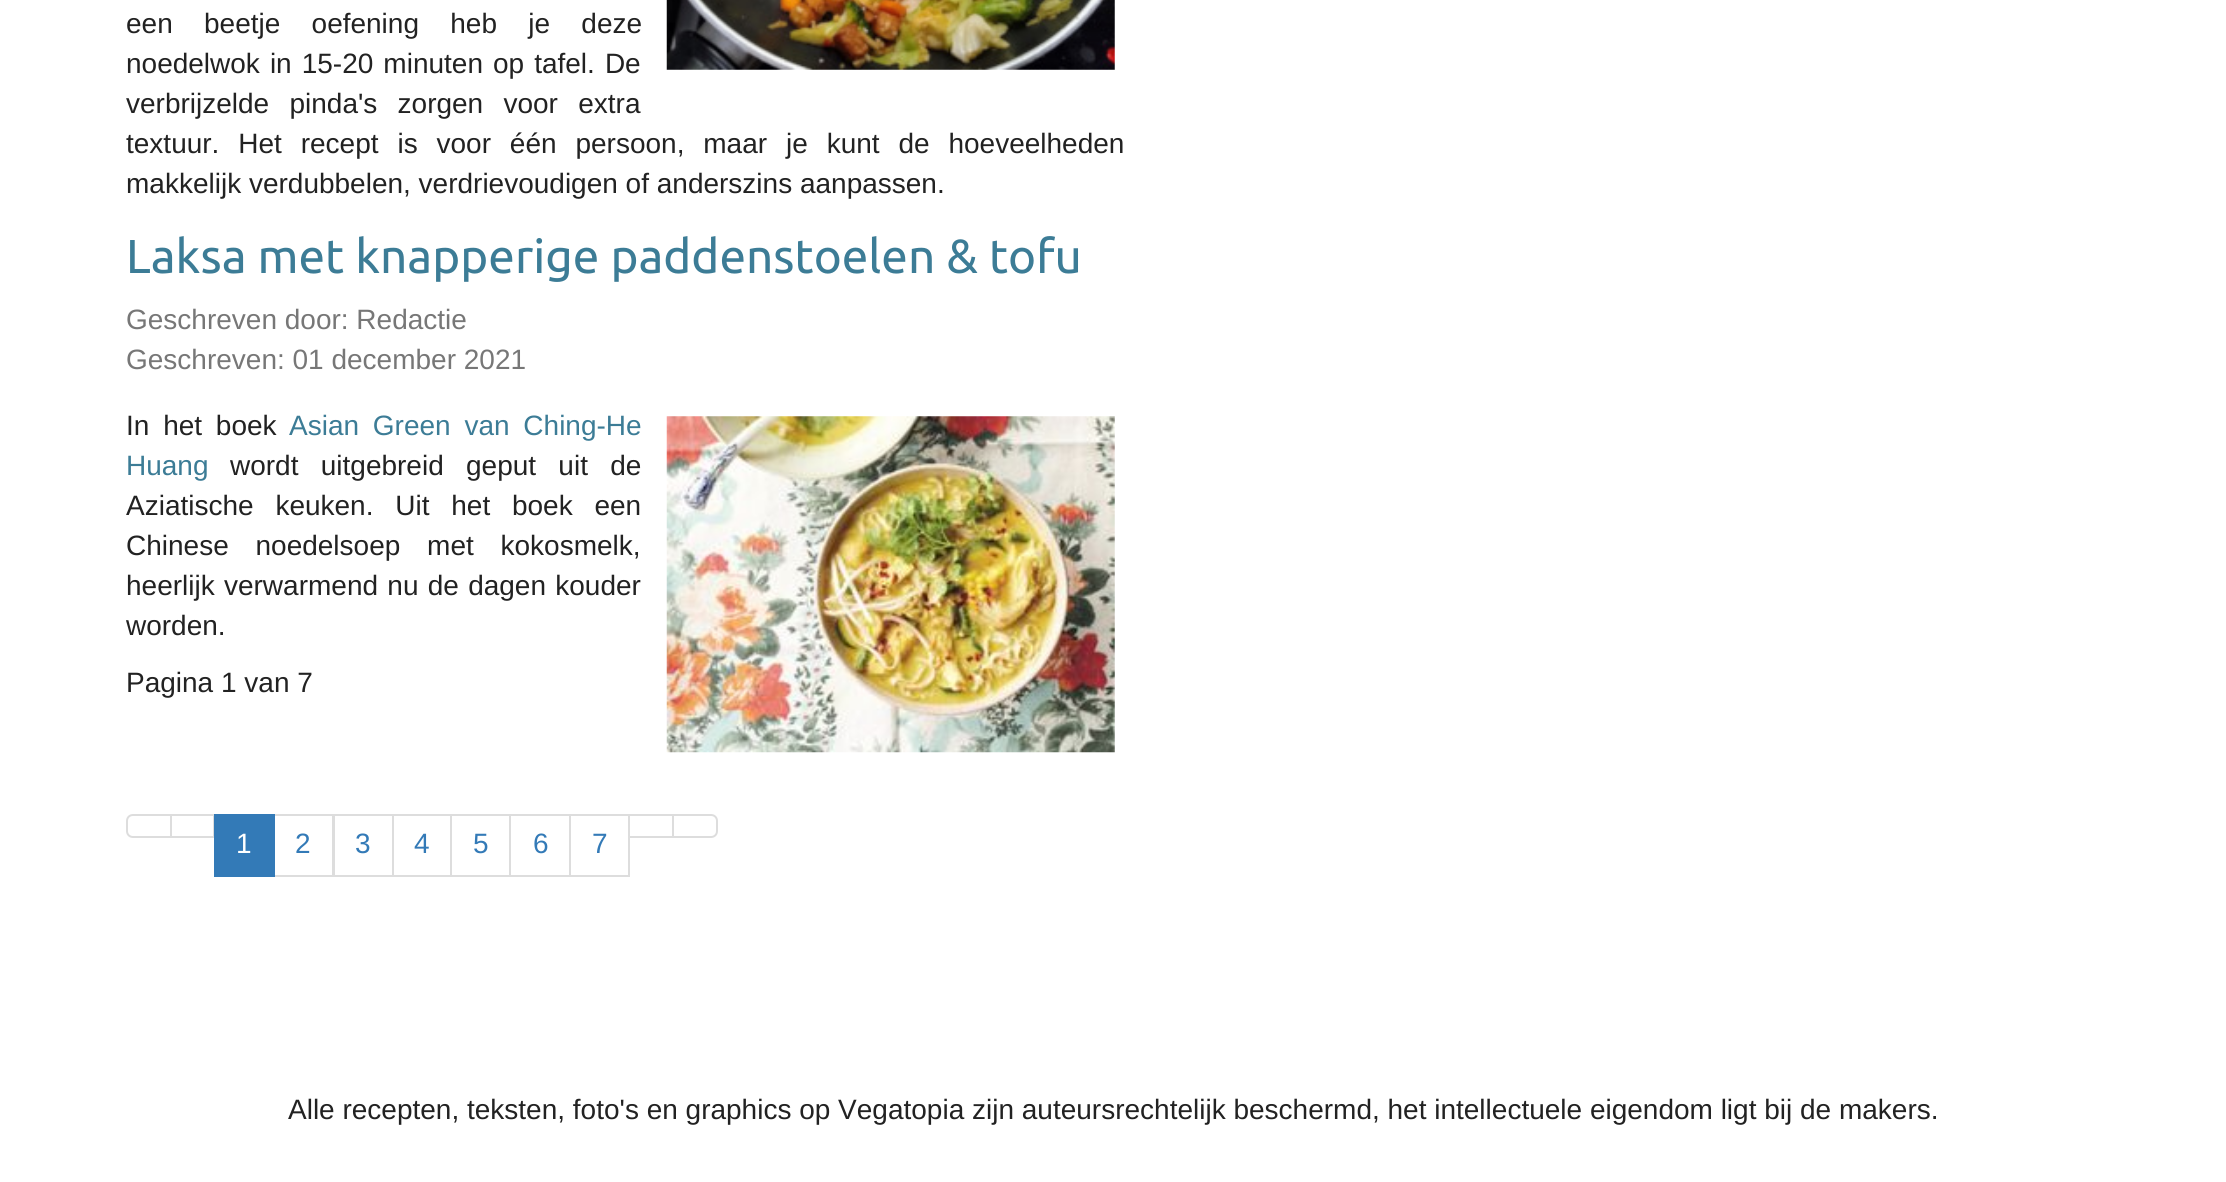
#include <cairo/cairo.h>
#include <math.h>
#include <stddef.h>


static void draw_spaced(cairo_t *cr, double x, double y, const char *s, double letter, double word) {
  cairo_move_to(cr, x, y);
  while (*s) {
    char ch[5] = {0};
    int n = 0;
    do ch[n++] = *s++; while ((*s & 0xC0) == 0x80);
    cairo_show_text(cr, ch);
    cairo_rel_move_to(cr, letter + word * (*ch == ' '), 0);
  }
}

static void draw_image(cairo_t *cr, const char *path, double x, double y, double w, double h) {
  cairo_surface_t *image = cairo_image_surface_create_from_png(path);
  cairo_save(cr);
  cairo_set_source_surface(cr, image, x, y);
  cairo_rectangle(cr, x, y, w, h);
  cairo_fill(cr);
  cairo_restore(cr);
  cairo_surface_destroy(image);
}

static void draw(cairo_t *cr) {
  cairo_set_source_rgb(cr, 1, 1, 1);
  cairo_paint(cr);
  draw_image(cr, "images/1.png", 666, 0, 449, 70);
  draw_image(cr, "images/2.png", 666, 416, 449, 337);
  cairo_new_path(cr);
  cairo_move_to(cr, 133, 815);
  cairo_line_to(cr, 171, 815);
  cairo_line_to(cr, 171, 837);
  cairo_line_to(cr, 133, 837);
  cairo_curve_to(cr, 129.5, 837, 127, 834.5, 127, 831);
  cairo_line_to(cr, 127, 821);
  cairo_curve_to(cr, 127, 817.5, 129.5, 815, 133, 815);
  cairo_close_path(cr);
  cairo_set_source_rgb(cr, 221 / 255.0, 221 / 255.0, 221 / 255.0);
  cairo_stroke(cr);
  cairo_rectangle(cr, 171, 815, 43, 22);
  cairo_stroke(cr);
  cairo_rectangle(cr, 274, 815, 59, 61);
  cairo_stroke(cr);
  cairo_rectangle(cr, 334, 815, 59, 61);
  cairo_stroke(cr);
  cairo_rectangle(cr, 393, 815, 58, 61);
  cairo_stroke(cr);
  cairo_rectangle(cr, 451, 815, 59, 61);
  cairo_stroke(cr);
  cairo_rectangle(cr, 510, 815, 60, 61);
  cairo_stroke(cr);
  cairo_rectangle(cr, 570, 815, 59, 61);
  cairo_stroke(cr);
  cairo_rectangle(cr, 629, 815, 44, 22);
  cairo_stroke(cr);
  cairo_set_source_rgb(cr, 1, 1, 1);
  cairo_new_path(cr);
  cairo_move_to(cr, 673, 815);
  cairo_line_to(cr, 711, 815);
  cairo_curve_to(cr, 714.5, 815, 717, 817.5, 717, 821);
  cairo_line_to(cr, 717, 831);
  cairo_curve_to(cr, 717, 834.5, 714.5, 837, 711, 837);
  cairo_line_to(cr, 673, 837);
  cairo_close_path(cr);
  cairo_fill_preserve(cr);
  cairo_set_source_rgb(cr, 221 / 255.0, 221 / 255.0, 221 / 255.0);
  cairo_stroke(cr);
  cairo_set_source_rgb(cr, 51 / 255.0, 122 / 255.0, 183 / 255.0);
  cairo_rectangle(cr, 214, 814, 61, 63);
  cairo_fill(cr);
  cairo_select_font_face(cr, "Liberation Sans", CAIRO_FONT_SLANT_NORMAL, CAIRO_FONT_WEIGHT_NORMAL);
  cairo_set_font_size(cr, 28);
  cairo_set_source_rgb(cr, 34 / 255.0, 34 / 255.0, 34 / 255.0);
  draw_spaced(cr, 126, 33, "een beetje oefening heb je deze", 0, 23.5);
  draw_spaced(cr, 126, 73, "noedelwok in 15-20 minuten op tafel. De", 0, 2.25);
  draw_spaced(cr, 126, 113, "verbrijzelde pinda's zorgen voor extra", 0, 12.5);
  draw_spaced(cr, 126, 153, "textuur. Het recept is voor één persoon, maar je kunt de hoeveelheden", 0, 11.1);
  cairo_move_to(cr, 126, 193);
  cairo_show_text(cr, "makkelijk verdubbelen, verdrievoudigen of anderszins aanpassen.");
  cairo_select_font_face(cr, "Ubuntu", CAIRO_FONT_SLANT_NORMAL, CAIRO_FONT_WEIGHT_NORMAL);
  cairo_set_font_size(cr, 47.6);
  cairo_set_source_rgb(cr, 60 / 255.0, 124 / 255.0, 150 / 255.0);
  cairo_move_to(cr, 126, 273);
  cairo_show_text(cr, "Laksa met knapperige paddenstoelen & tofu");
  cairo_select_font_face(cr, "Liberation Sans", CAIRO_FONT_SLANT_NORMAL, CAIRO_FONT_WEIGHT_NORMAL);
  cairo_set_font_size(cr, 28);
  cairo_set_source_rgb(cr, 119 / 255.0, 119 / 255.0, 119 / 255.0);
  cairo_move_to(cr, 126, 329);
  cairo_show_text(cr, "Geschreven door: Redactie");
  cairo_move_to(cr, 126, 369);
  cairo_show_text(cr, "Geschreven: 01 december 2021");
  cairo_set_source_rgb(cr, 34 / 255.0, 34 / 255.0, 34 / 255.0);
  draw_spaced(cr, 126, 435, "In het boek", 0, 6);
  cairo_set_source_rgb(cr, 60 / 255.0, 124 / 255.0, 150 / 255.0);
  draw_spaced(cr, 289, 435, "Asian Green van Ching-He", 0, 6);
  cairo_move_to(cr, 126, 475);
  cairo_show_text(cr, "Huang");
  cairo_set_source_rgb(cr, 34 / 255.0, 34 / 255.0, 34 / 255.0);
  draw_spaced(cr, 230, 475, "wordt uitgebreid geput uit de", 0, 14.5);
  draw_spaced(cr, 126, 515, "Aziatische keuken. Uit het boek een", 0, 14);
  draw_spaced(cr, 126, 555, "Chinese noedelsoep met kokosmelk,", 0, 19);
  draw_spaced(cr, 126, 595, "heerlijk verwarmend nu de dagen kouder", 0, 1.5);
  cairo_move_to(cr, 126, 635);
  cairo_show_text(cr, "worden.");
  cairo_move_to(cr, 126, 692);
  cairo_show_text(cr, "Pagina 1 van 7");
  cairo_set_source_rgb(cr, 1, 1, 1);
  cairo_move_to(cr, 236, 853);
  cairo_show_text(cr, "1");
  cairo_set_source_rgb(cr, 51 / 255.0, 122 / 255.0, 183 / 255.0);
  cairo_move_to(cr, 295, 853);
  cairo_show_text(cr, "2");
  cairo_move_to(cr, 355, 853);
  cairo_show_text(cr, "3");
  cairo_move_to(cr, 414, 853);
  cairo_show_text(cr, "4");
  cairo_move_to(cr, 473, 853);
  cairo_show_text(cr, "5");
  cairo_move_to(cr, 533, 853);
  cairo_show_text(cr, "6");
  cairo_move_to(cr, 592, 853);
  cairo_show_text(cr, "7");
  cairo_set_source_rgb(cr, 34 / 255.0, 34 / 255.0, 34 / 255.0);
  cairo_move_to(cr, 288, 1119);
  cairo_show_text(cr, "Alle recepten, teksten, foto's en graphics op Vegatopia zijn auteursrechtelijk beschermd, het intellectuele eigendom ligt bij de makers.");
}

int main(void) {
  cairo_surface_t *surface = cairo_image_surface_create(CAIRO_FORMAT_RGB24, 2226, 1182);
  cairo_t *cr = cairo_create(surface);
  cairo_font_options_t *options = cairo_font_options_create();
  cairo_font_options_set_hint_metrics(options, CAIRO_HINT_METRICS_OFF);
  cairo_font_options_set_hint_style(options, CAIRO_HINT_STYLE_NONE);
  cairo_set_font_options(cr, options);
  cairo_set_miter_limit(cr, 4);
  draw(cr);
  cairo_surface_write_to_png(surface, "out.png");
  cairo_font_options_destroy(options);
  cairo_destroy(cr);
  cairo_surface_destroy(surface);
  return 0;
}
